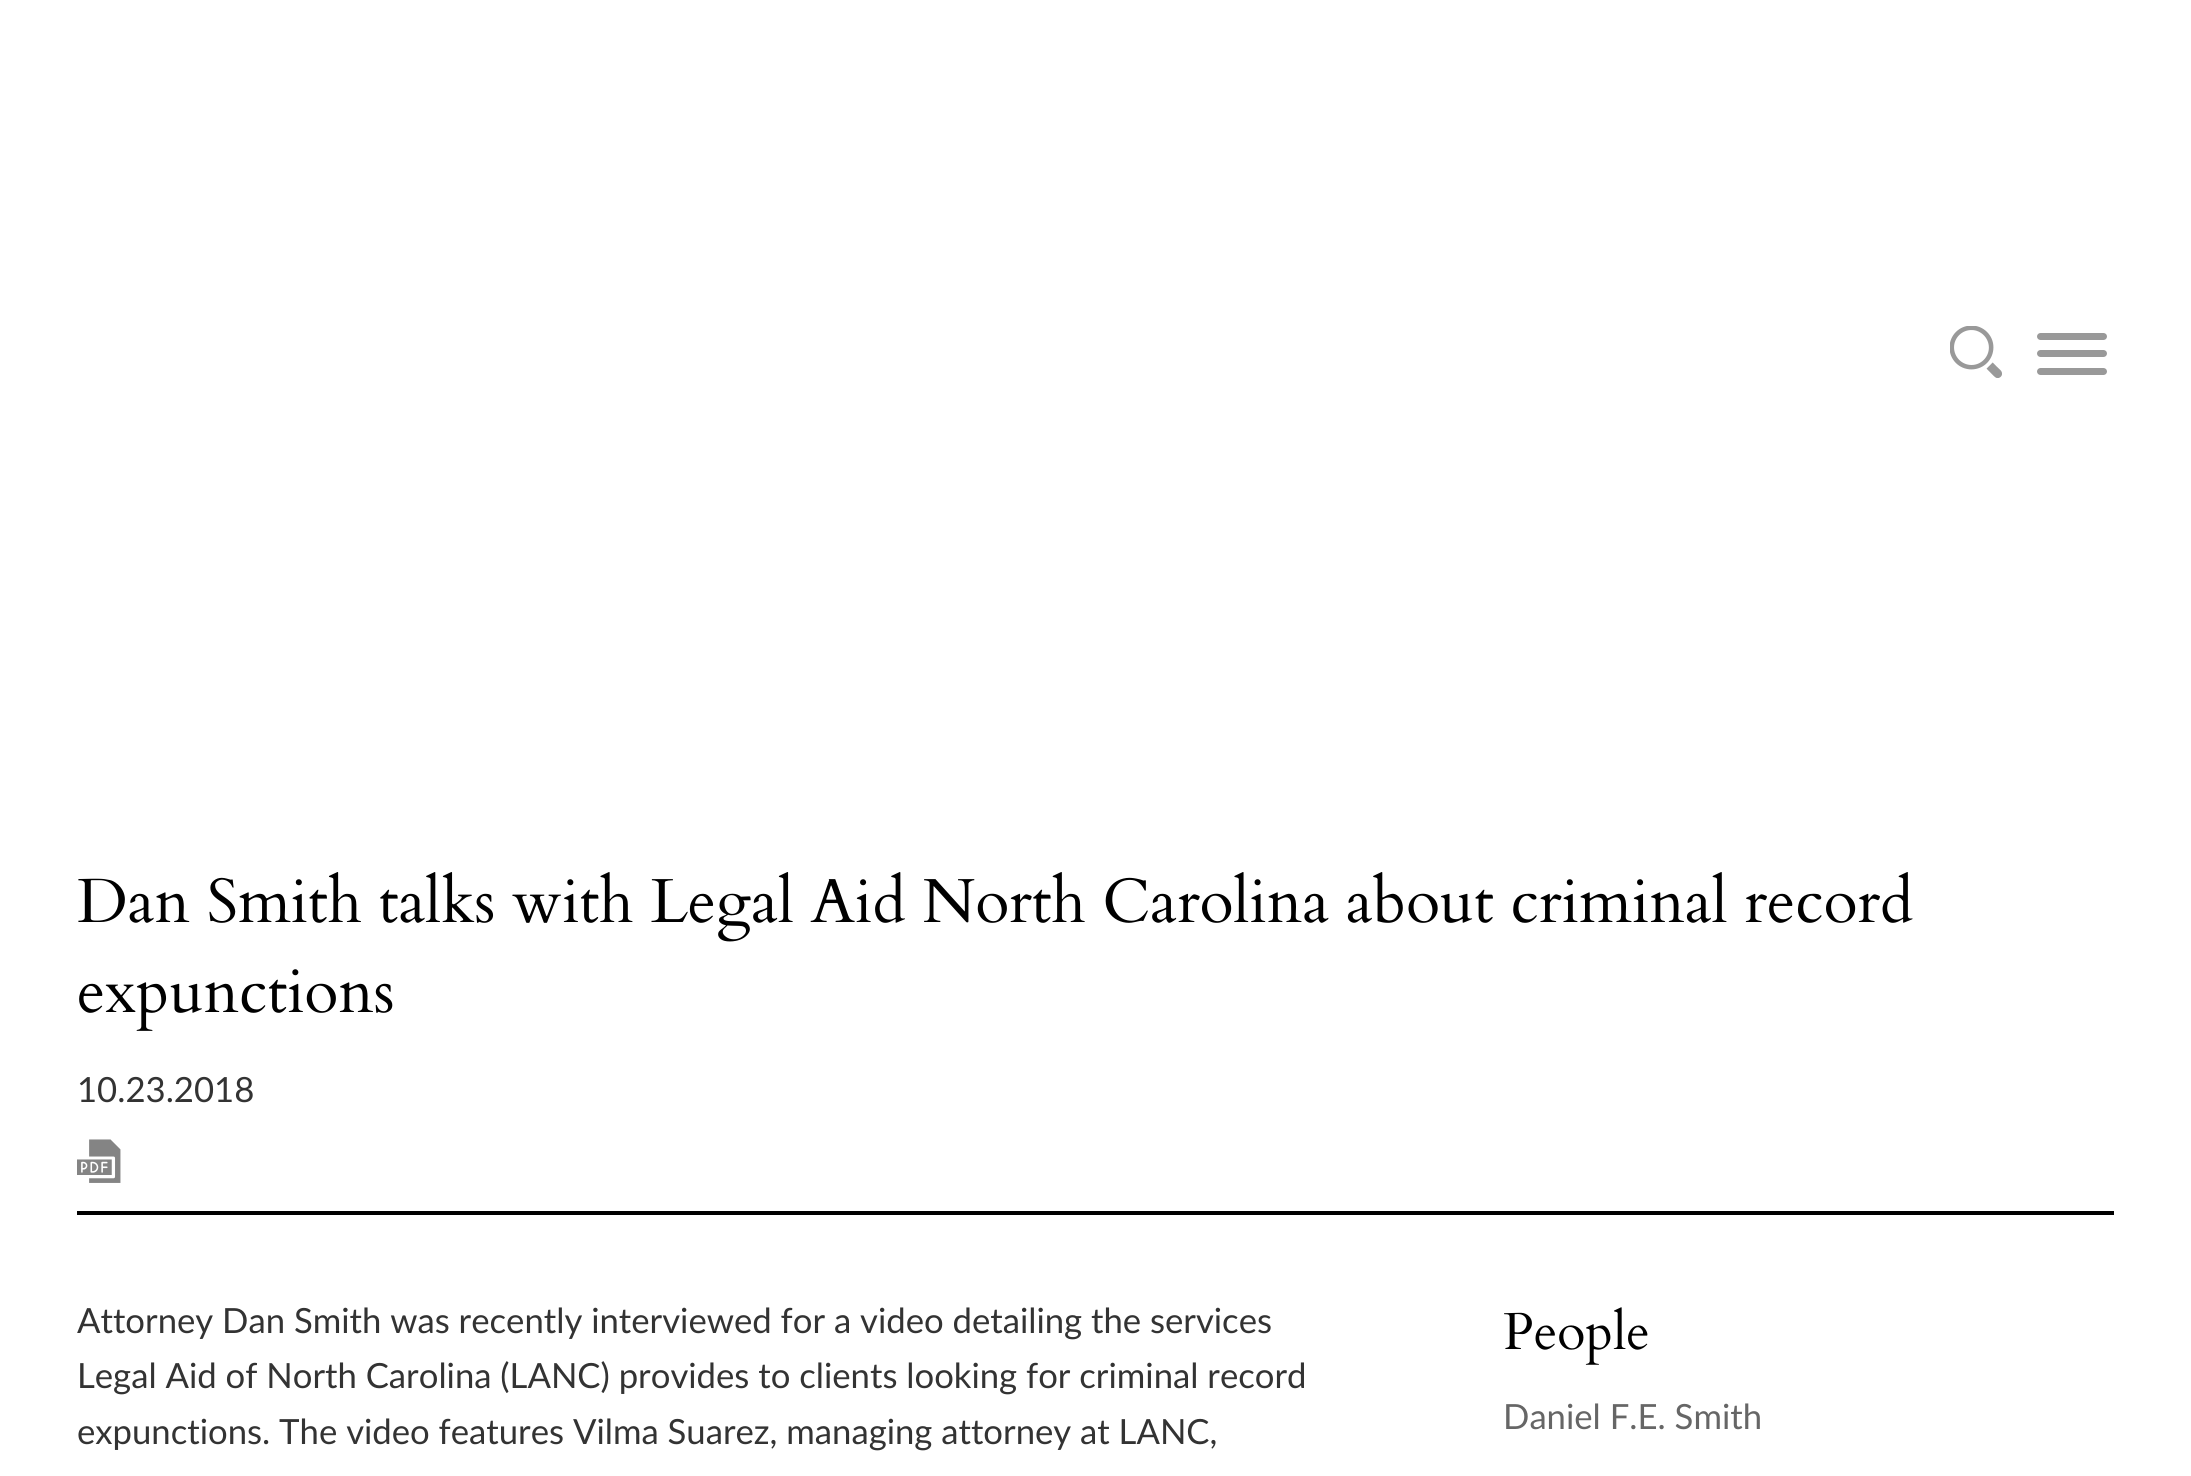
#include <cairo/cairo.h>
#include <math.h>
#include <stddef.h>


static void rounded_rect(cairo_t *cr, double x, double y, double w, double h, double r) {
  cairo_new_sub_path(cr);
  cairo_arc(cr, x + w - r, y + h - r, r, 0, M_PI / 2);
  cairo_arc(cr, x + r, y + h - r, r, M_PI / 2, M_PI);
  cairo_arc(cr, x + r, y + r, r, M_PI, 1.5 * M_PI);
  cairo_arc(cr, x + w - r, y + r, r, 1.5 * M_PI, 2 * M_PI);
  cairo_close_path(cr);
}

static void draw_image(cairo_t *cr, const char *path, double x, double y, double w, double h) {
  cairo_surface_t *image = cairo_image_surface_create_from_png(path);
  cairo_save(cr);
  cairo_set_source_surface(cr, image, x, y);
  cairo_rectangle(cr, x, y, w, h);
  cairo_fill(cr);
  cairo_restore(cr);
  cairo_surface_destroy(image);
}

static void draw(cairo_t *cr) {
  cairo_set_source_rgb(cr, 1, 1, 1);
  cairo_paint(cr);
  draw_image(cr, "images/1.png", 1950, 326, 52, 52);
  cairo_set_source_rgb(cr, 153 / 255.0, 153 / 255.0, 153 / 255.0);
  rounded_rect(cr, 2037, 333, 70, 7, 3.5);
  cairo_fill(cr);
  rounded_rect(cr, 2037, 350, 70, 7, 3.5);
  cairo_fill(cr);
  rounded_rect(cr, 2037, 368, 70, 7, 3.5);
  cairo_fill(cr);
  cairo_set_source_rgb(cr, 0, 0, 0);
  cairo_rectangle(cr, 77, 1211, 2037, 4);
  cairo_fill(cr);
  draw_image(cr, "images/2.png", 77, 1139, 44, 44);
  cairo_select_font_face(cr, "Cardo", CAIRO_FONT_SLANT_NORMAL, CAIRO_FONT_WEIGHT_NORMAL);
  cairo_set_font_size(cr, 62.3);
  cairo_move_to(cr, 77, 922);
  cairo_show_text(cr, "Dan Smith talks with Legal Aid North Carolina about criminal record");
  cairo_move_to(cr, 77, 1012);
  cairo_show_text(cr, "expunctions");
  cairo_select_font_face(cr, "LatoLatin", CAIRO_FONT_SLANT_NORMAL, CAIRO_FONT_WEIGHT_NORMAL);
  cairo_set_font_size(cr, 34.7);
  cairo_set_source_rgb(cr, 51 / 255.0, 51 / 255.0, 51 / 255.0);
  cairo_move_to(cr, 77, 1102);
  cairo_show_text(cr, "10.23.2018");
  cairo_move_to(cr, 77, 1333);
  cairo_show_text(cr, "Attorney Dan Smith was recently interviewed for a video detailing the services");
  cairo_move_to(cr, 77, 1388);
  cairo_show_text(cr, "Legal Aid of North Carolina (LANC) provides to clients looking for criminal record");
  cairo_move_to(cr, 77, 1444);
  cairo_show_text(cr, "expunctions. The video features Vilma Suarez, managing attorney at LANC,");
  cairo_select_font_face(cr, "Cardo", CAIRO_FONT_SLANT_NORMAL, CAIRO_FONT_WEIGHT_NORMAL);
  cairo_set_font_size(cr, 52);
  cairo_set_source_rgb(cr, 0, 0, 0);
  cairo_move_to(cr, 1503, 1349);
  cairo_show_text(cr, "People");
  cairo_select_font_face(cr, "LatoLatin", CAIRO_FONT_SLANT_NORMAL, CAIRO_FONT_WEIGHT_NORMAL);
  cairo_set_font_size(cr, 34.7);
  cairo_set_source_rgb(cr, 102 / 255.0, 102 / 255.0, 102 / 255.0);
  cairo_move_to(cr, 1503, 1429);
  cairo_show_text(cr, "Daniel F.E. Smith");
}

int main(void) {
  cairo_surface_t *surface = cairo_image_surface_create(CAIRO_FORMAT_RGB24, 2191, 1476);
  cairo_t *cr = cairo_create(surface);
  cairo_font_options_t *options = cairo_font_options_create();
  cairo_font_options_set_hint_metrics(options, CAIRO_HINT_METRICS_OFF);
  cairo_font_options_set_hint_style(options, CAIRO_HINT_STYLE_NONE);
  cairo_set_font_options(cr, options);
  cairo_set_miter_limit(cr, 4);
  draw(cr);
  cairo_surface_write_to_png(surface, "out.png");
  cairo_font_options_destroy(options);
  cairo_destroy(cr);
  cairo_surface_destroy(surface);
  return 0;
}
